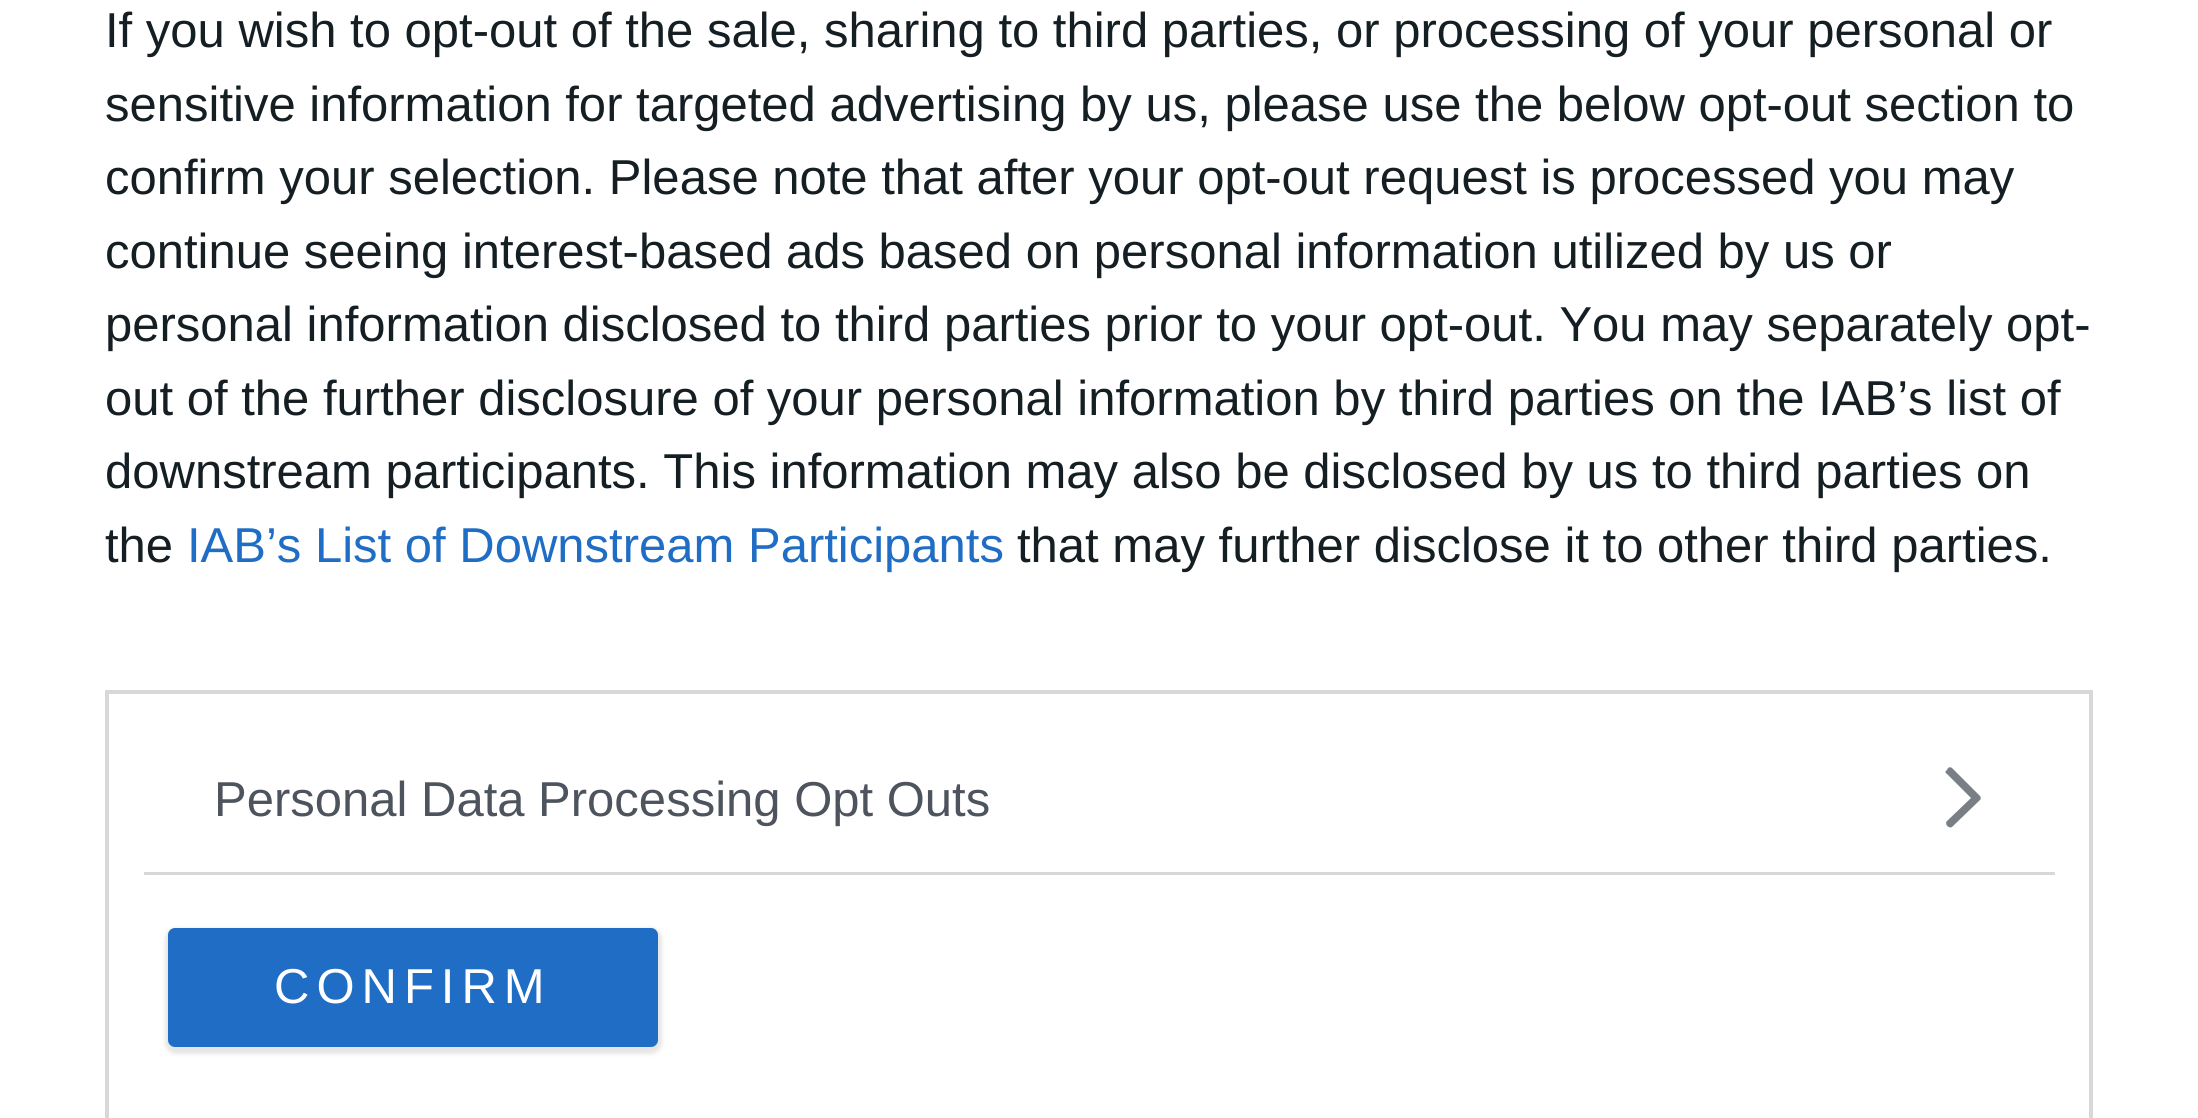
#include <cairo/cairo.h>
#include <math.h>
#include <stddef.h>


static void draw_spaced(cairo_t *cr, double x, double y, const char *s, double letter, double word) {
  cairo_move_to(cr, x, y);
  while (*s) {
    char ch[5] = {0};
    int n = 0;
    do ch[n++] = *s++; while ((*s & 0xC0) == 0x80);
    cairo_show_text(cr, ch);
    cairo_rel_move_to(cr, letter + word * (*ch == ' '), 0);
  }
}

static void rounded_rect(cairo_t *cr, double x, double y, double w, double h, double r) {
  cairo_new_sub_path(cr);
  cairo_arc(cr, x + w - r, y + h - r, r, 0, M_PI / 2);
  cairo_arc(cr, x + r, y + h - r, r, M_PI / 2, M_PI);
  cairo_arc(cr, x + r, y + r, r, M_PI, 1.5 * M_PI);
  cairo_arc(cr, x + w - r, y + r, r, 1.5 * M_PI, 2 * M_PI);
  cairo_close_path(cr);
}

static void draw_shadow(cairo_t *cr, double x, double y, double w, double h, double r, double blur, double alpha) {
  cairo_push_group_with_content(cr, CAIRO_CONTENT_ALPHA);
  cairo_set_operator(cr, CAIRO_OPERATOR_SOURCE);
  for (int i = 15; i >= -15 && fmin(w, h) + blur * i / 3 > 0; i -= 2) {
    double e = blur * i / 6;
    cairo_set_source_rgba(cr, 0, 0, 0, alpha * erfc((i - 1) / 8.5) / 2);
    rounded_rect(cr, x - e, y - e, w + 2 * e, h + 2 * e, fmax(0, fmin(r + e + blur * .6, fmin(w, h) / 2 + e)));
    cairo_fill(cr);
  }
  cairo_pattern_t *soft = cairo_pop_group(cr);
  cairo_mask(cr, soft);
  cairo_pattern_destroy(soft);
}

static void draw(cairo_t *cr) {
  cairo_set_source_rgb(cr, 1, 1, 1);
  cairo_paint(cr);
  cairo_rectangle(cr, 107, 692, 1984, 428);
  cairo_set_source_rgb(cr, 216 / 255.0, 216 / 255.0, 216 / 255.0);
  cairo_set_line_width(cr, 4);
  cairo_stroke(cr);
  cairo_rectangle(cr, 144, 872, 1911, 3);
  cairo_fill(cr);
  cairo_set_source_rgb(cr, 122 / 255.0, 127 / 255.0, 133 / 255.0);
  cairo_new_path(cr);
  cairo_move_to(cr, 1980, 800);
  cairo_line_to(cr, 1952, 827);
  cairo_curve_to(cr, 1949, 829, 1944, 824, 1947, 821);
  cairo_line_to(cr, 1971, 798);
  cairo_line_to(cr, 1947, 774);
  cairo_curve_to(cr, 1945, 773, 1945, 771, 1947, 770);
  cairo_line_to(cr, 1948, 768);
  cairo_curve_to(cr, 1949, 767, 1951, 767, 1952, 768);
  cairo_line_to(cr, 1980, 796);
  cairo_curve_to(cr, 1981, 797, 1981, 799, 1980, 800);
  cairo_close_path(cr);
  cairo_fill(cr);
  cairo_set_source_rgb(cr, 0, 0, 0);
  draw_shadow(cr, 165, 928, 497, 126, 11, 2, 0.1);
  cairo_set_source_rgb(cr, 32 / 255.0, 109 / 255.0, 197 / 255.0);
  rounded_rect(cr, 168, 928, 490, 119, 7);
  cairo_fill(cr);
  cairo_select_font_face(cr, "Liberation Sans", CAIRO_FONT_SLANT_NORMAL, CAIRO_FONT_WEIGHT_NORMAL);
  cairo_set_font_size(cr, 49);
  cairo_set_source_rgb(cr, 20 / 255.0, 30 / 255.0, 35 / 255.0);
  cairo_move_to(cr, 105, 47);
  cairo_show_text(cr, "If you wish to opt-out of the sale, sharing to third parties, or processing of your personal or");
  cairo_move_to(cr, 105, 121);
  cairo_show_text(cr, "sensitive information for targeted advertising by us, please use the below opt-out section to");
  cairo_move_to(cr, 105, 194);
  cairo_show_text(cr, "confirm your selection. Please note that after your opt-out request is processed you may");
  cairo_move_to(cr, 105, 268);
  cairo_show_text(cr, "continue seeing interest-based ads based on personal information utilized by us or");
  cairo_move_to(cr, 105, 341);
  cairo_show_text(cr, "personal information disclosed to third parties prior to your opt-out. You may separately opt-");
  cairo_move_to(cr, 105, 415);
  cairo_show_text(cr, "out of the further disclosure of your personal information by third parties on the IAB’s list of");
  cairo_move_to(cr, 105, 488);
  cairo_show_text(cr, "downstream participants. This information may also be disclosed by us to third parties on");
  cairo_move_to(cr, 105, 562);
  cairo_show_text(cr, "the");
  cairo_set_source_rgb(cr, 32 / 255.0, 109 / 255.0, 197 / 255.0);
  cairo_move_to(cr, 187, 562);
  cairo_show_text(cr, "IAB’s List of Downstream Participants");
  cairo_set_source_rgb(cr, 20 / 255.0, 30 / 255.0, 35 / 255.0);
  cairo_move_to(cr, 1017, 562);
  cairo_show_text(cr, "that may further disclose it to other third parties.");
  cairo_set_source_rgb(cr, 77 / 255.0, 84 / 255.0, 93 / 255.0);
  cairo_move_to(cr, 214, 816);
  cairo_show_text(cr, "Personal Data Processing Opt Outs");
  cairo_set_source_rgb(cr, 1, 1, 1);
  draw_spaced(cr, 274, 1003, "CONFIRM", 7, 0);
}

int main(void) {
  cairo_surface_t *surface = cairo_image_surface_create(CAIRO_FORMAT_RGB24, 2198, 1118);
  cairo_t *cr = cairo_create(surface);
  cairo_font_options_t *options = cairo_font_options_create();
  cairo_font_options_set_hint_metrics(options, CAIRO_HINT_METRICS_OFF);
  cairo_font_options_set_hint_style(options, CAIRO_HINT_STYLE_NONE);
  cairo_set_font_options(cr, options);
  cairo_set_miter_limit(cr, 4);
  draw(cr);
  cairo_surface_write_to_png(surface, "out.png");
  cairo_font_options_destroy(options);
  cairo_destroy(cr);
  cairo_surface_destroy(surface);
  return 0;
}
